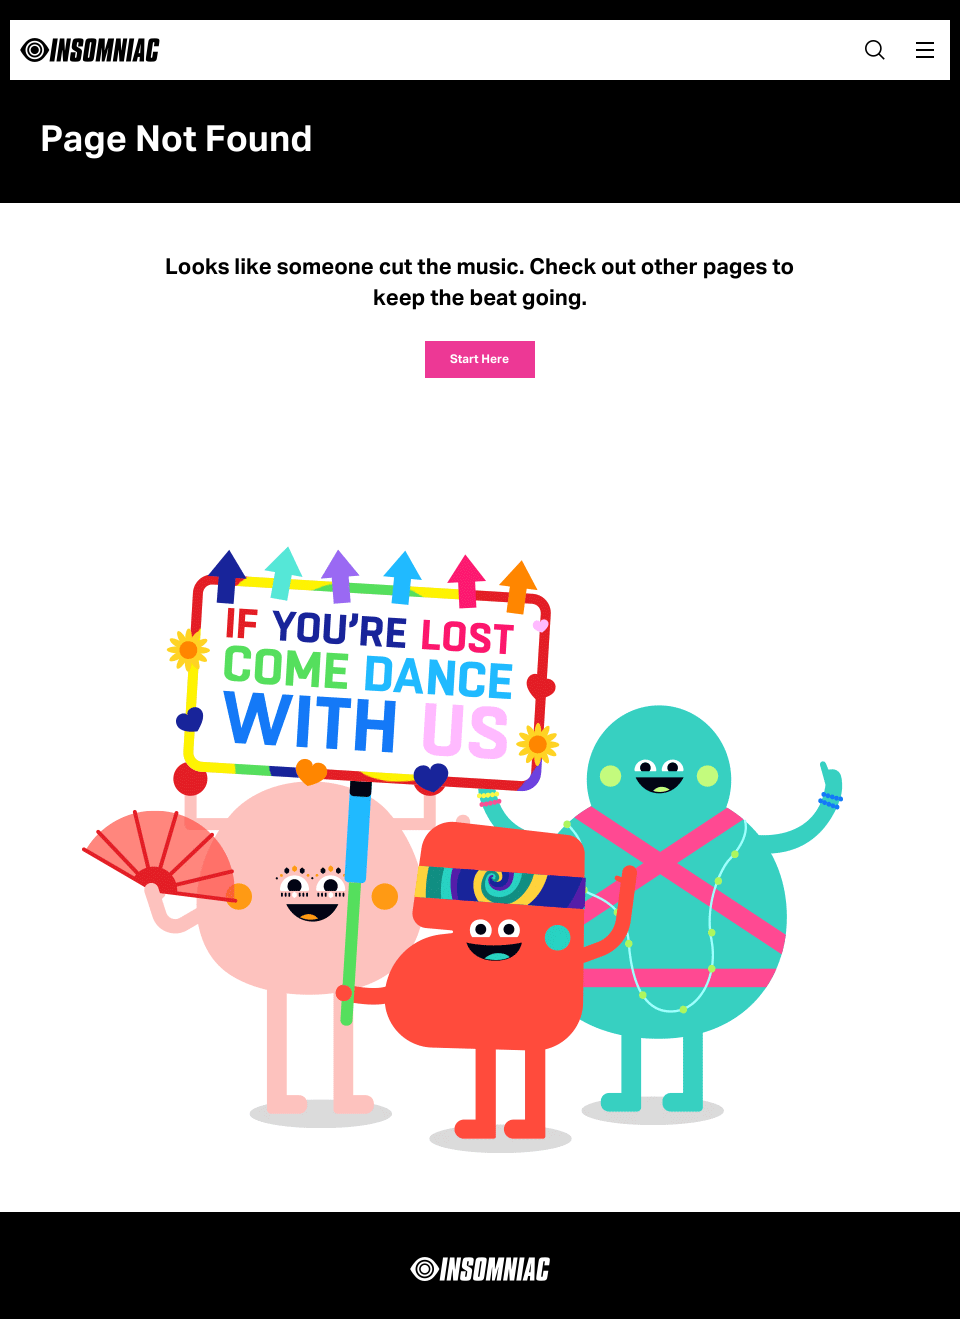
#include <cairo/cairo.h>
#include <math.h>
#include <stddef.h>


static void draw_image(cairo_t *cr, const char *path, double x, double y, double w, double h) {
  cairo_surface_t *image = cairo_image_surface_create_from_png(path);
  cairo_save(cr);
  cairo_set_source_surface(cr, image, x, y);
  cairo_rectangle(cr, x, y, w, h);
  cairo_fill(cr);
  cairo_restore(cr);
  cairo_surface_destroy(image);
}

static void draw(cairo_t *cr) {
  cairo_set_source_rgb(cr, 1, 1, 1);
  cairo_paint(cr);
  cairo_set_source_rgb(cr, 0, 0, 0);
  cairo_rectangle(cr, 0, 0, 960, 203);
  cairo_fill(cr);
  cairo_set_source_rgb(cr, 1, 1, 1);
  cairo_rectangle(cr, 10, 20, 940, 60);
  cairo_fill(cr);
  draw_image(cr, "images/1.png", 20, 38, 140, 24);
  draw_image(cr, "images/2.png", 865, 40, 20, 20);
  cairo_set_source_rgb(cr, 0, 0, 0);
  cairo_rectangle(cr, 916, 49, 18, 2);
  cairo_fill(cr);
  cairo_rectangle(cr, 916, 42, 18, 2);
  cairo_fill(cr);
  cairo_rectangle(cr, 916, 56, 18, 2);
  cairo_fill(cr);
  cairo_set_source_rgb(cr, 237 / 255.0, 56 / 255.0, 149 / 255.0);
  cairo_rectangle(cr, 425, 341, 110, 37);
  cairo_fill(cr);
  draw_image(cr, "images/3.png", 82, 546, 761, 607);
  cairo_set_source_rgb(cr, 0, 0, 0);
  cairo_rectangle(cr, 0, 1212, 960, 107);
  cairo_fill(cr);
  draw_image(cr, "images/4.png", 410, 1257, 140, 24);
  cairo_select_font_face(cr, "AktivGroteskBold", CAIRO_FONT_SLANT_NORMAL, CAIRO_FONT_WEIGHT_NORMAL);
  cairo_set_font_size(cr, 36);
  cairo_set_source_rgb(cr, 1, 1, 1);
  cairo_move_to(cr, 40, 151);
  cairo_show_text(cr, "Page Not Found");
  cairo_set_font_size(cr, 22);
  cairo_set_source_rgb(cr, 0, 0, 0);
  cairo_move_to(cr, 165, 274);
  cairo_show_text(cr, "Looks like someone cut the music. Check out other pages to");
  cairo_move_to(cr, 373, 305);
  cairo_show_text(cr, "keep the beat going.");
  cairo_set_font_size(cr, 12);
  cairo_set_source_rgb(cr, 1, 1, 1);
  cairo_move_to(cr, 450, 363);
  cairo_show_text(cr, "Start Here");
}

int main(void) {
  cairo_surface_t *surface = cairo_image_surface_create(CAIRO_FORMAT_RGB24, 960, 1319);
  cairo_t *cr = cairo_create(surface);
  cairo_font_options_t *options = cairo_font_options_create();
  cairo_font_options_set_hint_metrics(options, CAIRO_HINT_METRICS_OFF);
  cairo_font_options_set_hint_style(options, CAIRO_HINT_STYLE_NONE);
  cairo_set_font_options(cr, options);
  cairo_set_miter_limit(cr, 4);
  draw(cr);
  cairo_surface_write_to_png(surface, "out.png");
  cairo_font_options_destroy(options);
  cairo_destroy(cr);
  cairo_surface_destroy(surface);
  return 0;
}
